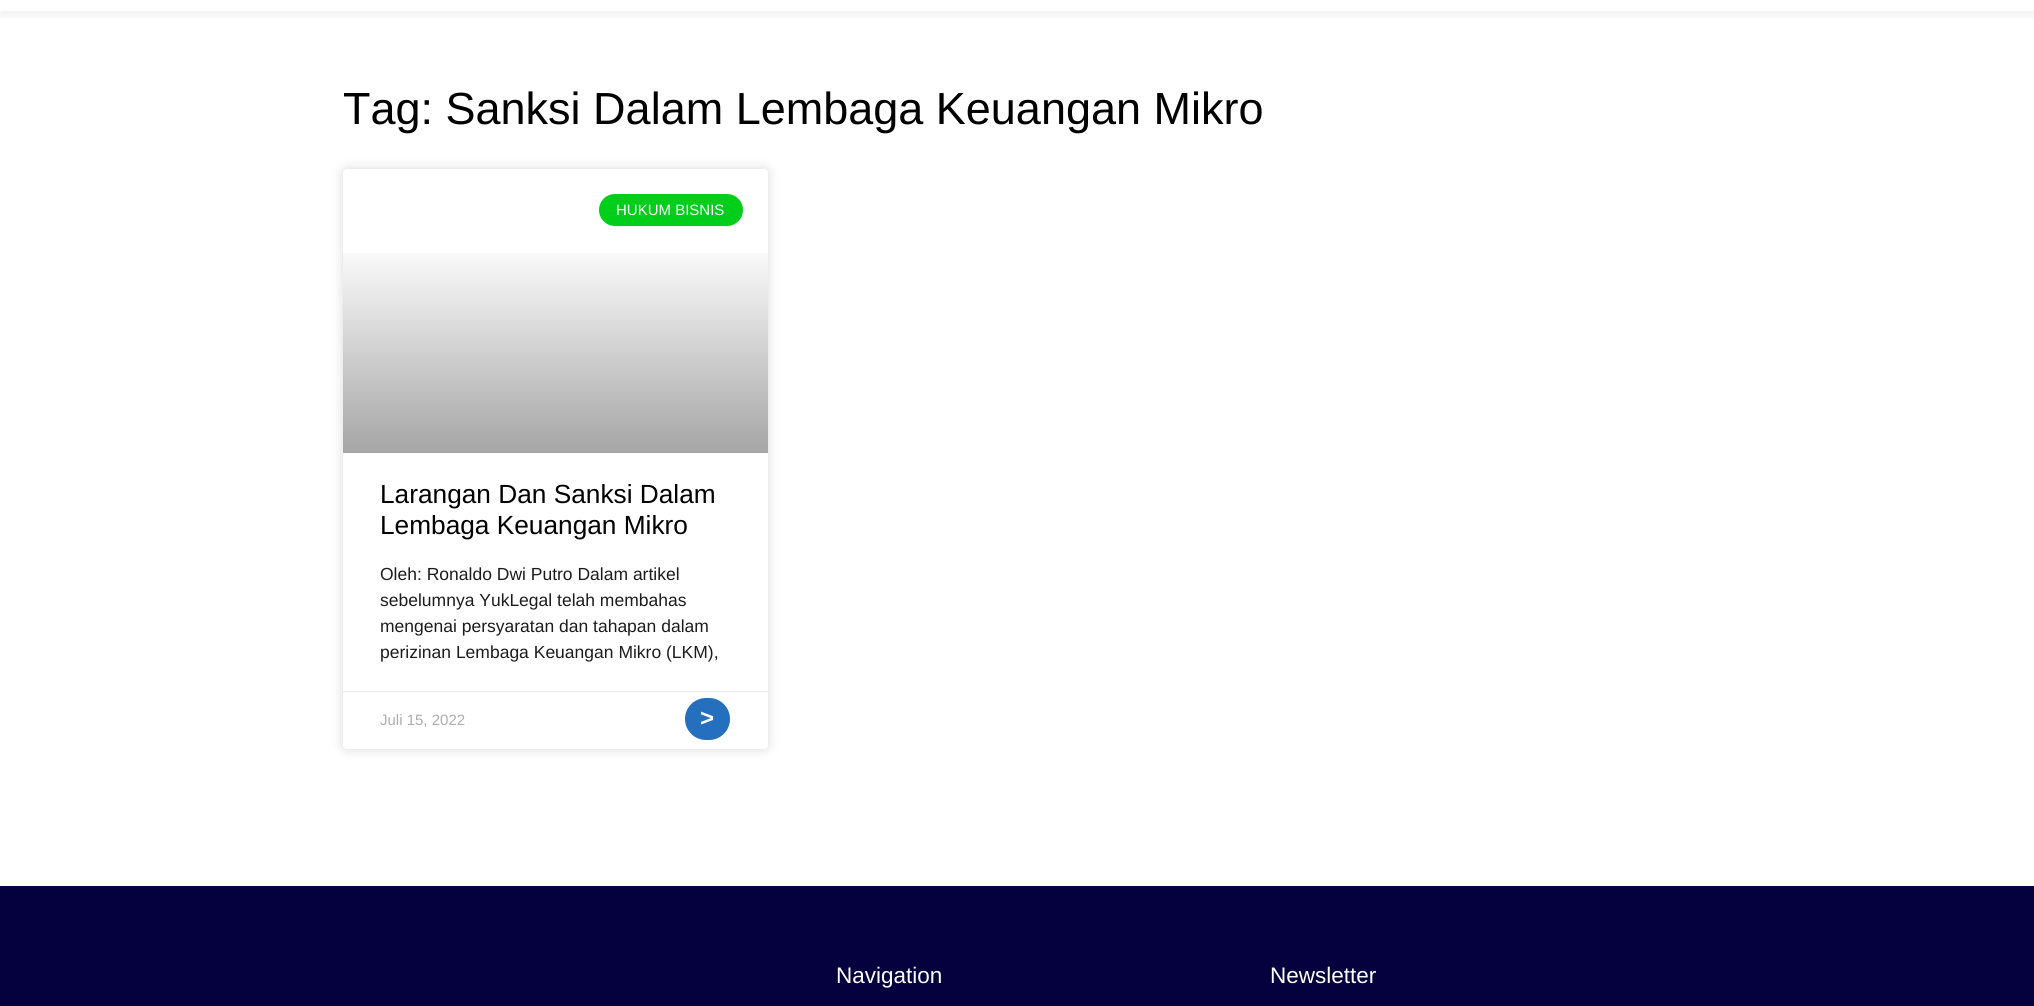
#include <cairo/cairo.h>
#include <math.h>
#include <stddef.h>


static void rounded_rect(cairo_t *cr, double x, double y, double w, double h, double r) {
  cairo_new_sub_path(cr);
  cairo_arc(cr, x + w - r, y + h - r, r, 0, M_PI / 2);
  cairo_arc(cr, x + r, y + h - r, r, M_PI / 2, M_PI);
  cairo_arc(cr, x + r, y + r, r, M_PI, 1.5 * M_PI);
  cairo_arc(cr, x + w - r, y + r, r, 1.5 * M_PI, 2 * M_PI);
  cairo_close_path(cr);
}

static void draw_shadow(cairo_t *cr, double x, double y, double w, double h, double r, double blur, double alpha) {
  cairo_push_group_with_content(cr, CAIRO_CONTENT_ALPHA);
  cairo_set_operator(cr, CAIRO_OPERATOR_SOURCE);
  for (int i = 15; i >= -15 && fmin(w, h) + blur * i / 3 > 0; i -= 2) {
    double e = blur * i / 6;
    cairo_set_source_rgba(cr, 0, 0, 0, alpha * erfc((i - 1) / 8.5) / 2);
    rounded_rect(cr, x - e, y - e, w + 2 * e, h + 2 * e, fmax(0, fmin(r + e + blur * .6, fmin(w, h) / 2 + e)));
    cairo_fill(cr);
  }
  cairo_pattern_t *soft = cairo_pop_group(cr);
  cairo_mask(cr, soft);
  cairo_pattern_destroy(soft);
}

static void draw(cairo_t *cr) {
  cairo_pattern_t *gradient;
  cairo_set_source_rgb(cr, 1, 1, 1);
  cairo_paint(cr);
  cairo_save(cr);
  cairo_rectangle(cr, 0, 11, 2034, 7);
  cairo_clip(cr);
  cairo_set_source_rgb(cr, 0, 0, 0);
  draw_shadow(cr, 0, -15, 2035, 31, 0, 5, 0.06);
  cairo_restore(cr);
  cairo_set_source_rgb(cr, 0, 0, 0);
  draw_shadow(cr, 343, 169, 425, 580, 4, 6, 0.15);
  cairo_set_source_rgb(cr, 1, 1, 1);
  rounded_rect(cr, 343, 169, 425, 580, 4);
  cairo_fill(cr);
  cairo_set_source_rgb(cr, 0, 206 / 255.0, 27 / 255.0);
  rounded_rect(cr, 599, 194, 144, 32, 16);
  cairo_fill(cr);
  gradient = cairo_pattern_create_linear(555, 453, 555, 169);
  cairo_pattern_add_color_stop_rgba(gradient, 0, 0, 0, 0, 0.35);
  cairo_pattern_add_color_stop_rgba(gradient, 0.75, 0, 0, 0, 0);
  cairo_set_source(cr, gradient);
  cairo_pattern_destroy(gradient);
  cairo_rectangle(cr, 343, 253, 425, 200);
  cairo_fill(cr);
  cairo_set_source_rgb(cr, 36 / 255.0, 112 / 255.0, 191 / 255.0);
  rounded_rect(cr, 685, 698, 45, 42, 21);
  cairo_fill(cr);
  cairo_set_source_rgb(cr, 234 / 255.0, 234 / 255.0, 234 / 255.0);
  cairo_rectangle(cr, 343, 691, 425, 1);
  cairo_fill(cr);
  cairo_set_source_rgb(cr, 4 / 255.0, 1 / 255.0, 62 / 255.0);
  cairo_rectangle(cr, 0, 886, 2034, 120);
  cairo_fill(cr);
  cairo_select_font_face(cr, "Liberation Sans", CAIRO_FONT_SLANT_NORMAL, CAIRO_FONT_WEIGHT_NORMAL);
  cairo_set_font_size(cr, 45);
  cairo_set_source_rgb(cr, 0, 0, 0);
  cairo_move_to(cr, 343, 124);
  cairo_show_text(cr, "Tag: Sanksi Dalam Lembaga Keuangan Mikro");
  cairo_set_font_size(cr, 15);
  cairo_set_source_rgb(cr, 1, 1, 1);
  cairo_move_to(cr, 616, 215);
  cairo_show_text(cr, "HUKUM BISNIS");
  cairo_set_font_size(cr, 26.25);
  cairo_set_source_rgb(cr, 0, 0, 0);
  cairo_move_to(cr, 380, 503);
  cairo_show_text(cr, "Larangan Dan Sanksi Dalam");
  cairo_move_to(cr, 380, 534);
  cairo_show_text(cr, "Lembaga Keuangan Mikro");
  cairo_set_font_size(cr, 17.5);
  cairo_set_source_rgb(cr, 28 / 255.0, 28 / 255.0, 28 / 255.0);
  cairo_move_to(cr, 380, 580);
  cairo_show_text(cr, "Oleh: Ronaldo Dwi Putro Dalam artikel");
  cairo_move_to(cr, 380, 606);
  cairo_show_text(cr, "sebelumnya YukLegal telah membahas");
  cairo_move_to(cr, 380, 632);
  cairo_show_text(cr, "mengenai persyaratan dan tahapan dalam");
  cairo_move_to(cr, 380, 658);
  cairo_show_text(cr, "perizinan Lembaga Keuangan Mikro (LKM),");
  cairo_select_font_face(cr, "Liberation Sans", CAIRO_FONT_SLANT_NORMAL, CAIRO_FONT_WEIGHT_BOLD);
  cairo_set_font_size(cr, 24);
  cairo_set_source_rgb(cr, 1, 1, 1);
  cairo_move_to(cr, 700, 726);
  cairo_show_text(cr, ">");
  cairo_select_font_face(cr, "Liberation Sans", CAIRO_FONT_SLANT_NORMAL, CAIRO_FONT_WEIGHT_NORMAL);
  cairo_set_font_size(cr, 15);
  cairo_set_source_rgb(cr, 173 / 255.0, 173 / 255.0, 173 / 255.0);
  cairo_move_to(cr, 380, 725);
  cairo_show_text(cr, "Juli 15, 2022");
  cairo_set_font_size(cr, 22.5);
  cairo_set_source_rgb(cr, 1, 1, 1);
  cairo_move_to(cr, 836, 983);
  cairo_show_text(cr, "Navigation");
  cairo_move_to(cr, 1270, 983);
  cairo_show_text(cr, "Newsletter");
}

int main(void) {
  cairo_surface_t *surface = cairo_image_surface_create(CAIRO_FORMAT_RGB24, 2034, 1006);
  cairo_t *cr = cairo_create(surface);
  cairo_font_options_t *options = cairo_font_options_create();
  cairo_font_options_set_hint_metrics(options, CAIRO_HINT_METRICS_OFF);
  cairo_font_options_set_hint_style(options, CAIRO_HINT_STYLE_NONE);
  cairo_set_font_options(cr, options);
  cairo_set_miter_limit(cr, 4);
  draw(cr);
  cairo_surface_write_to_png(surface, "out.png");
  cairo_font_options_destroy(options);
  cairo_destroy(cr);
  cairo_surface_destroy(surface);
  return 0;
}
